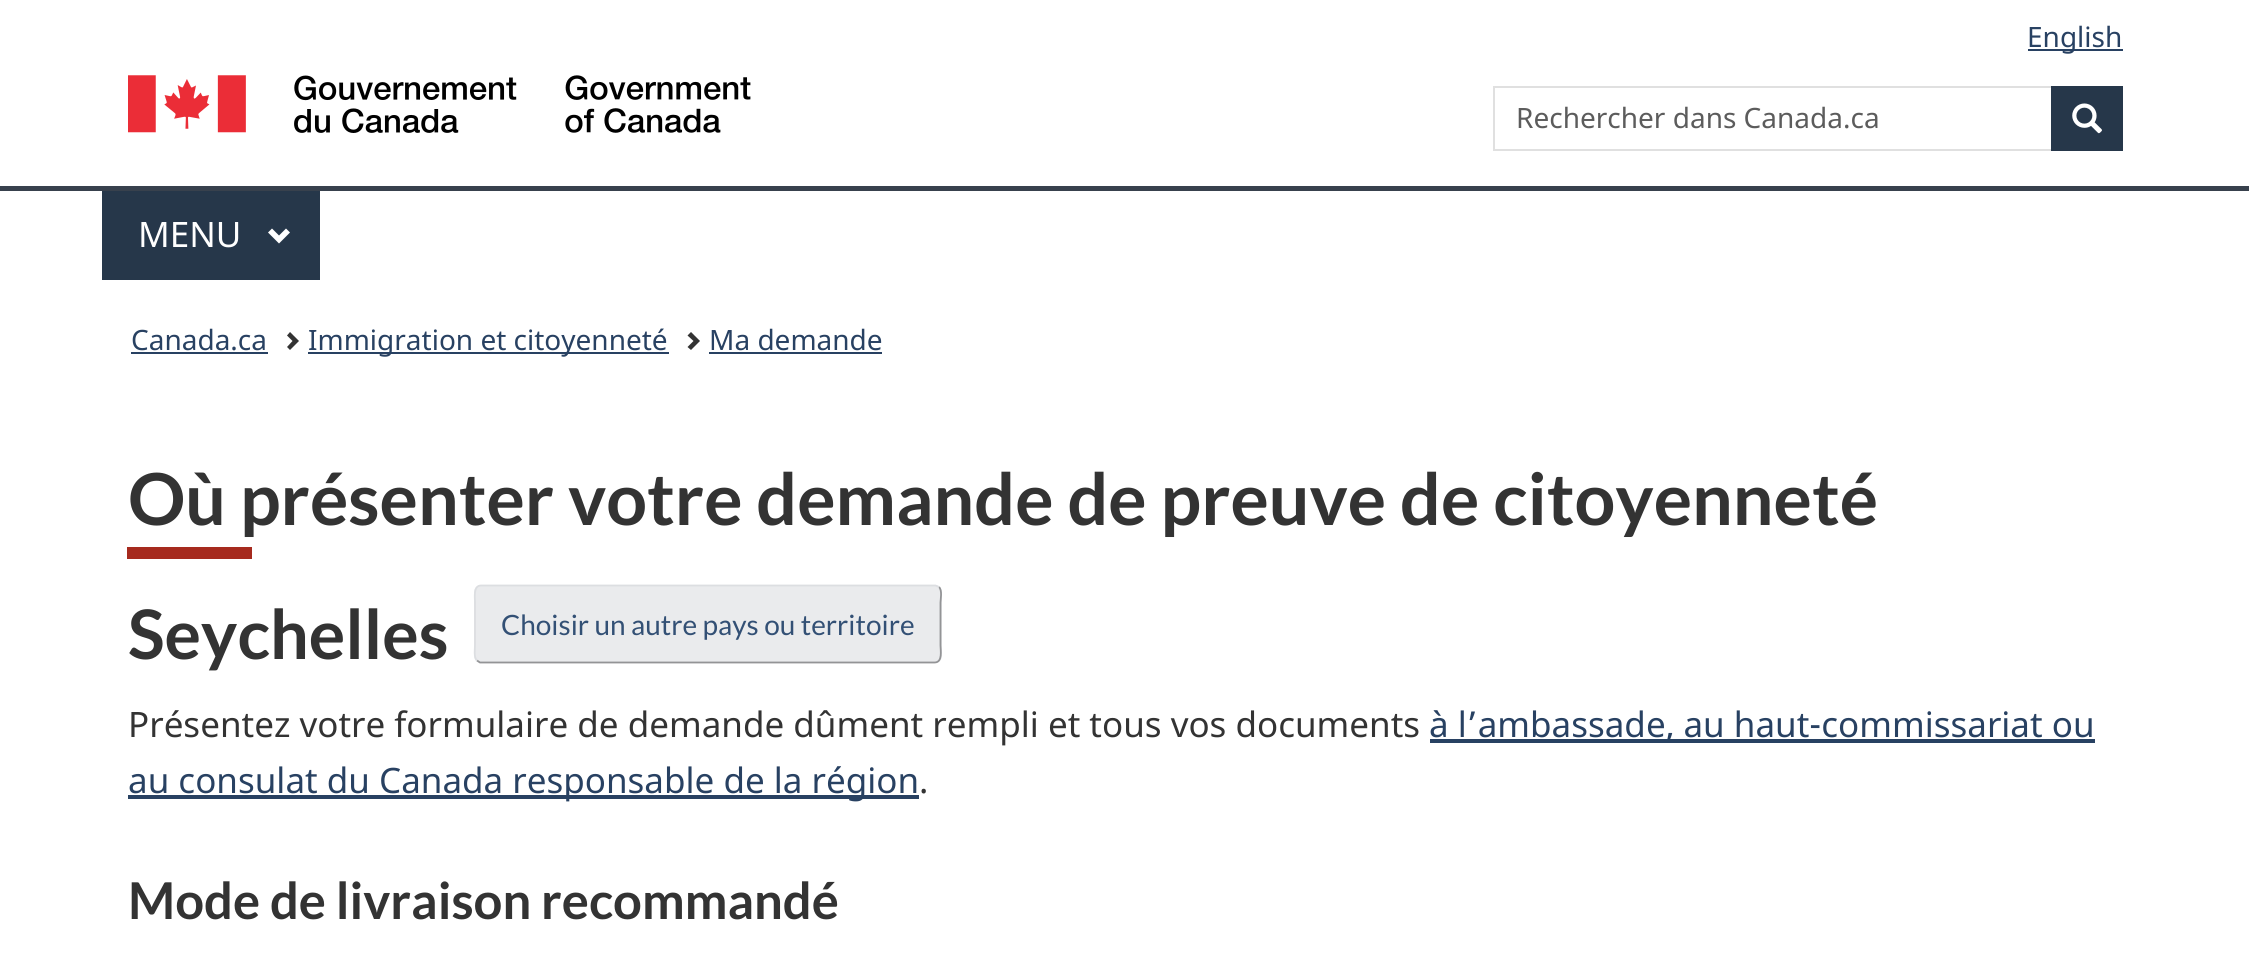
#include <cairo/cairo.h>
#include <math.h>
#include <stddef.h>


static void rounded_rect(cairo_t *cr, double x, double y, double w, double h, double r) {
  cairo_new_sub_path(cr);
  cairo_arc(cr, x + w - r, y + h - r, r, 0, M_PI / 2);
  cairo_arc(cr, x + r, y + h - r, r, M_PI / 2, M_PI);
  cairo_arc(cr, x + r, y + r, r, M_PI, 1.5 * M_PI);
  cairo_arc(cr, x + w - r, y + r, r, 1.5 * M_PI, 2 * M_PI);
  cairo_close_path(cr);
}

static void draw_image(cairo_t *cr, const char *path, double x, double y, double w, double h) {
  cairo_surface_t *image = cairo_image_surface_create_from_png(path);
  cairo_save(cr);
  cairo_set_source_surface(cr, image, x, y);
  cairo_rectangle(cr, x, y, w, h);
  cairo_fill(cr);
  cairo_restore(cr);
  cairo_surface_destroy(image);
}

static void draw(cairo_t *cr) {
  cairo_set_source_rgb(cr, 1, 1, 1);
  cairo_paint(cr);
  cairo_set_source_rgb(cr, 40 / 255.0, 65 / 255.0, 98 / 255.0);
  cairo_rectangle(cr, 2028, 49, 95, 2);
  cairo_fill(cr);
  draw_image(cr, "images/1.png", 128, 75, 623, 58);
  cairo_rectangle(cr, 1494, 87, 628, 63);
  cairo_set_source_rgb(cr, 224 / 255.0, 224 / 255.0, 224 / 255.0);
  cairo_stroke(cr);
  cairo_set_source_rgb(cr, 38 / 255.0, 55 / 255.0, 74 / 255.0);
  cairo_rectangle(cr, 2051, 86, 72, 65);
  cairo_fill(cr);
  draw_image(cr, "images/2.png", 2072, 103, 30, 31);
  cairo_set_source_rgb(cr, 56 / 255.0, 65 / 255.0, 77 / 255.0);
  cairo_rectangle(cr, 0, 186, 2249, 5);
  cairo_fill(cr);
  cairo_set_source_rgb(cr, 38 / 255.0, 55 / 255.0, 74 / 255.0);
  cairo_rectangle(cr, 102, 191, 218, 89);
  cairo_fill(cr);
  cairo_set_source_rgb(cr, 1, 1, 1);
  cairo_new_path(cr);
  cairo_move_to(cr, 290, 232.5);
  cairo_line_to(cr, 279, 243.5);
  cairo_line_to(cr, 268, 232.5);
  cairo_line_to(cr, 272, 228.5);
  cairo_line_to(cr, 279, 235.5);
  cairo_line_to(cr, 286, 228.5);
  cairo_close_path(cr);
  cairo_fill(cr);
  cairo_set_source_rgb(cr, 40 / 255.0, 65 / 255.0, 98 / 255.0);
  cairo_rectangle(cr, 131, 352, 137, 2);
  cairo_fill(cr);
  cairo_set_source_rgb(cr, 51 / 255.0, 51 / 255.0, 51 / 255.0);
  cairo_new_path(cr);
  cairo_move_to(cr, 299, 341);
  cairo_line_to(cr, 290, 350);
  cairo_line_to(cr, 287, 347);
  cairo_line_to(cr, 292.5, 341);
  cairo_line_to(cr, 287, 335.5);
  cairo_line_to(cr, 290, 332);
  cairo_close_path(cr);
  cairo_fill(cr);
  cairo_set_source_rgb(cr, 40 / 255.0, 65 / 255.0, 98 / 255.0);
  cairo_rectangle(cr, 308, 352, 361, 2);
  cairo_fill(cr);
  cairo_set_source_rgb(cr, 51 / 255.0, 51 / 255.0, 51 / 255.0);
  cairo_new_path(cr);
  cairo_move_to(cr, 700, 341);
  cairo_line_to(cr, 691, 350);
  cairo_line_to(cr, 687.5, 347);
  cairo_line_to(cr, 693.5, 341);
  cairo_line_to(cr, 687.5, 335.5);
  cairo_line_to(cr, 691, 332);
  cairo_close_path(cr);
  cairo_fill(cr);
  cairo_set_source_rgb(cr, 40 / 255.0, 65 / 255.0, 98 / 255.0);
  cairo_rectangle(cr, 709, 352, 173, 2);
  cairo_fill(cr);
  cairo_set_source_rgb(cr, 166 / 255.0, 42 / 255.0, 30 / 255.0);
  cairo_rectangle(cr, 127, 547, 125, 12);
  cairo_fill(cr);
  cairo_set_source_rgb(cr, 234 / 255.0, 235 / 255.0, 237 / 255.0);
  rounded_rect(cr, 474, 585, 468, 78, 7);
  cairo_fill(cr);
  cairo_new_path(cr);
  cairo_move_to(cr, 939, 587);
  cairo_curve_to(cr, 942.5, 590.5, 940.5, 599.5, 940.5, 602.5);
  cairo_line_to(cr, 940.5, 645.5);
  cairo_curve_to(cr, 940.5, 650, 943, 662.5, 934.5, 662.5);
  cairo_line_to(cr, 480, 662.5);
  cairo_line_to(cr, 477, 660.5);
  cairo_set_source_rgb(cr, 147 / 255.0, 148 / 255.0, 150 / 255.0);
  cairo_set_line_width(cr, 1.8);
  cairo_stroke(cr);
  cairo_new_path(cr);
  cairo_move_to(cr, 477, 660.5);
  cairo_curve_to(cr, 473.5, 657, 475, 648.5, 475, 645.5);
  cairo_line_to(cr, 475, 602.5);
  cairo_curve_to(cr, 475, 598, 473, 585.5, 481, 585.5);
  cairo_line_to(cr, 935.5, 585.5);
  cairo_line_to(cr, 939, 587);
  cairo_set_source_rgb(cr, 220 / 255.0, 222 / 255.0, 225 / 255.0);
  cairo_stroke(cr);
  cairo_set_source_rgb(cr, 40 / 255.0, 65 / 255.0, 98 / 255.0);
  cairo_rectangle(cr, 1430, 739, 665, 4);
  cairo_fill(cr);
  cairo_rectangle(cr, 128, 795, 791, 4);
  cairo_fill(cr);
  cairo_select_font_face(cr, "Noto Sans", CAIRO_FONT_SLANT_NORMAL, CAIRO_FONT_WEIGHT_NORMAL);
  cairo_set_font_size(cr, 28);
  cairo_move_to(cr, 2027, 47);
  cairo_show_text(cr, "English");
  cairo_set_source_rgb(cr, 92 / 255.0, 92 / 255.0, 92 / 255.0);
  cairo_move_to(cr, 1516, 128);
  cairo_show_text(cr, "Rechercher dans Canada.ca");
  cairo_set_font_size(cr, 35);
  cairo_set_source_rgb(cr, 1, 1, 1);
  cairo_move_to(cr, 138, 247);
  cairo_show_text(cr, "MENU");
  cairo_set_font_size(cr, 28);
  cairo_set_source_rgb(cr, 40 / 255.0, 65 / 255.0, 98 / 255.0);
  cairo_move_to(cr, 131, 350);
  cairo_show_text(cr, "Canada.ca");
  cairo_move_to(cr, 308, 350);
  cairo_show_text(cr, "Immigration et citoyenneté");
  cairo_move_to(cr, 709, 350);
  cairo_show_text(cr, "Ma demande");
  cairo_select_font_face(cr, "Lato", CAIRO_FONT_SLANT_NORMAL, CAIRO_FONT_WEIGHT_BOLD);
  cairo_set_font_size(cr, 71.75);
  cairo_set_source_rgb(cr, 51 / 255.0, 51 / 255.0, 51 / 255.0);
  cairo_move_to(cr, 128, 525);
  cairo_show_text(cr, "Où présenter votre demande de preuve de citoyenneté");
  cairo_set_font_size(cr, 68.25);
  cairo_move_to(cr, 128, 659);
  cairo_show_text(cr, "Seychelles");
  cairo_select_font_face(cr, "Lato", CAIRO_FONT_SLANT_NORMAL, CAIRO_FONT_WEIGHT_NORMAL);
  cairo_set_font_size(cr, 28);
  cairo_set_source_rgb(cr, 51 / 255.0, 80 / 255.0, 117 / 255.0);
  cairo_move_to(cr, 501, 635);
  cairo_show_text(cr, "Choisir un autre pays ou territoire");
  cairo_select_font_face(cr, "Noto Sans", CAIRO_FONT_SLANT_NORMAL, CAIRO_FONT_WEIGHT_NORMAL);
  cairo_set_font_size(cr, 35);
  cairo_set_source_rgb(cr, 51 / 255.0, 51 / 255.0, 51 / 255.0);
  cairo_move_to(cr, 128, 737);
  cairo_show_text(cr, "Présentez votre formulaire de demande dûment rempli et tous vos documents");
  cairo_set_source_rgb(cr, 40 / 255.0, 65 / 255.0, 98 / 255.0);
  cairo_move_to(cr, 1429, 737);
  cairo_show_text(cr, "à l’ambassade, au haut-commissariat ou");
  cairo_move_to(cr, 128, 793);
  cairo_show_text(cr, "au consulat du Canada responsable de la région");
  cairo_set_source_rgb(cr, 51 / 255.0, 51 / 255.0, 51 / 255.0);
  cairo_move_to(cr, 919, 793);
  cairo_show_text(cr, ".");
  cairo_select_font_face(cr, "Lato", CAIRO_FONT_SLANT_NORMAL, CAIRO_FONT_WEIGHT_BOLD);
  cairo_set_font_size(cr, 50.75);
  cairo_move_to(cr, 128, 919);
  cairo_show_text(cr, "Mode de livraison recommandé");
}

int main(void) {
  cairo_surface_t *surface = cairo_image_surface_create(CAIRO_FORMAT_RGB24, 2249, 971);
  cairo_t *cr = cairo_create(surface);
  cairo_font_options_t *options = cairo_font_options_create();
  cairo_font_options_set_hint_metrics(options, CAIRO_HINT_METRICS_OFF);
  cairo_font_options_set_hint_style(options, CAIRO_HINT_STYLE_NONE);
  cairo_set_font_options(cr, options);
  cairo_set_miter_limit(cr, 4);
  draw(cr);
  cairo_surface_write_to_png(surface, "out.png");
  cairo_font_options_destroy(options);
  cairo_destroy(cr);
  cairo_surface_destroy(surface);
  return 0;
}
